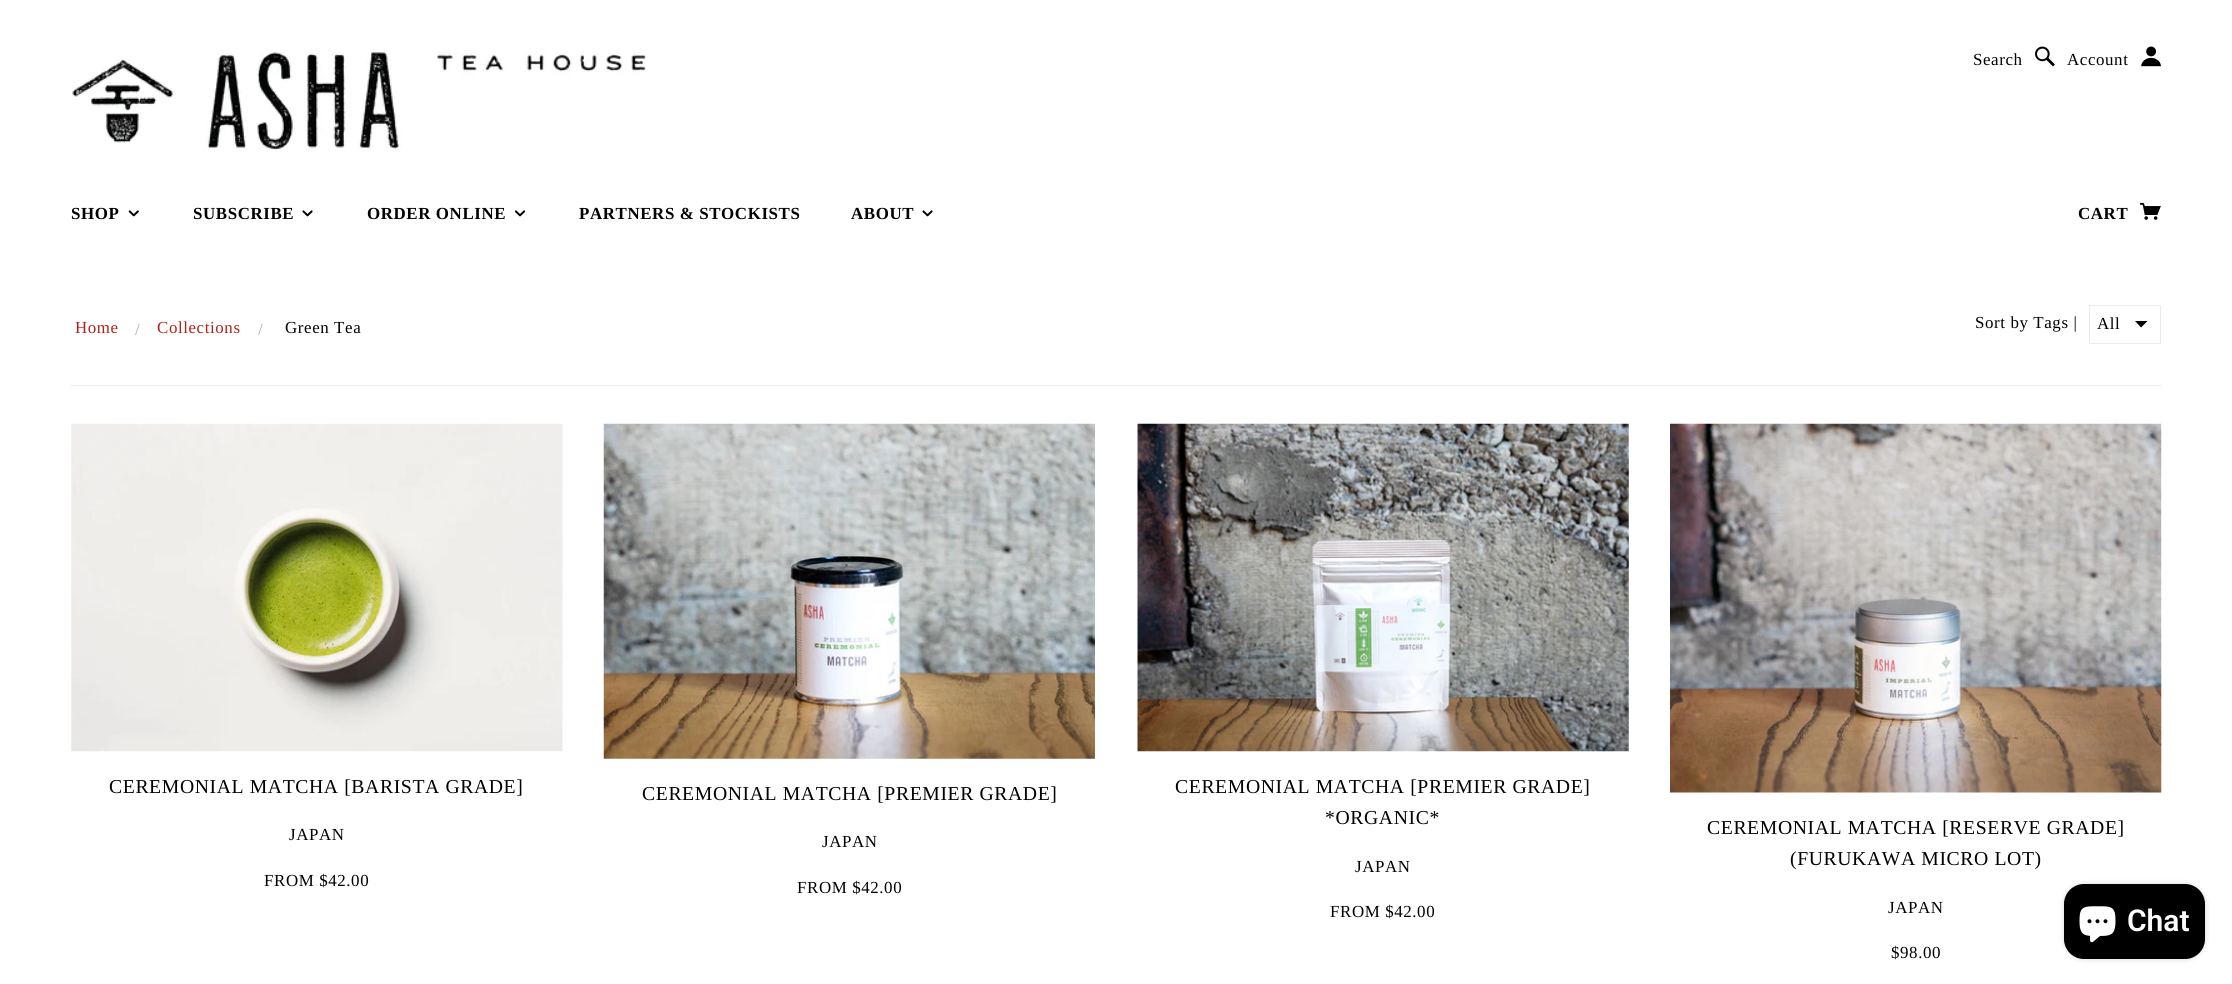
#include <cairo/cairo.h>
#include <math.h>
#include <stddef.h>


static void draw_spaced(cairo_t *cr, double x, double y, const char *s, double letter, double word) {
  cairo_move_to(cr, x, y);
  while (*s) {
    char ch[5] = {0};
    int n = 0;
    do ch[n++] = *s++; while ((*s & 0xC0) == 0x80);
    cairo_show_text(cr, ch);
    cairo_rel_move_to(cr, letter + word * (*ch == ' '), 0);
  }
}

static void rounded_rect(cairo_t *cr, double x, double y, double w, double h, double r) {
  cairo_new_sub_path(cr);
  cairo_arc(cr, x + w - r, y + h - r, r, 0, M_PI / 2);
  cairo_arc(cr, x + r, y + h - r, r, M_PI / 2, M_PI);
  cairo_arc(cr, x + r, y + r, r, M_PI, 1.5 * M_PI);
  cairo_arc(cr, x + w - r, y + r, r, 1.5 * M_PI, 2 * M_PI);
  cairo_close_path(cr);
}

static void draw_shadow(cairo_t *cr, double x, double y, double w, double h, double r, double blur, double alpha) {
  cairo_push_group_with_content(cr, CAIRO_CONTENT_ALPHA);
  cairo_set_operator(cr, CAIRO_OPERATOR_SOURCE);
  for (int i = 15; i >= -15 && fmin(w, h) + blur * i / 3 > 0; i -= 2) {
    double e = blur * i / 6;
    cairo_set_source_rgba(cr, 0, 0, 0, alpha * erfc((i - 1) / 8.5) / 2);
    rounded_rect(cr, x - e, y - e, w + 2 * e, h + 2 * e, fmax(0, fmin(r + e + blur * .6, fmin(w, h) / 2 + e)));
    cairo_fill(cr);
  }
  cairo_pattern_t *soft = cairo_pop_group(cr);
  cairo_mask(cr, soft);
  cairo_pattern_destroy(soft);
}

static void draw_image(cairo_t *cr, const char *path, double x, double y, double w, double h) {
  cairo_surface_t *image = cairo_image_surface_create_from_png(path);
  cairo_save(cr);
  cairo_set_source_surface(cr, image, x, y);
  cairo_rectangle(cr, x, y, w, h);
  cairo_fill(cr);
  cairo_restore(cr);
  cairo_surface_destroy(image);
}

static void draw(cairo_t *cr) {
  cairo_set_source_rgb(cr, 1, 1, 1);
  cairo_paint(cr);
  draw_image(cr, "images/1.png", 72, 52, 574, 98);
  draw_image(cr, "images/2.png", 2035, 46, 20, 21);
  draw_image(cr, "images/3.png", 2141, 46, 20, 21);
  draw_image(cr, "images/4.png", 128, 210, 11, 7);
  draw_image(cr, "images/5.png", 302, 210, 11, 7);
  draw_image(cr, "images/6.png", 515, 210, 11, 7);
  draw_image(cr, "images/5.png", 922, 210, 11, 7);
  draw_image(cr, "images/7.png", 2140, 202, 21, 18);
  cairo_rectangle(cr, 2089.5, 305.5, 71, 38);
  cairo_set_source_rgb(cr, 235 / 255.0, 235 / 255.0, 235 / 255.0);
  cairo_set_line_width(cr, 1);
  cairo_stroke(cr);
  cairo_set_source_rgb(cr, 0, 0, 0);
  cairo_new_path(cr);
  cairo_move_to(cr, 2135, 321);
  cairo_line_to(cr, 2147.5, 321);
  cairo_line_to(cr, 2141, 327.5);
  cairo_close_path(cr);
  cairo_fill(cr);
  cairo_set_source_rgb(cr, 235 / 255.0, 235 / 255.0, 235 / 255.0);
  cairo_rectangle(cr, 71, 385, 2090, 1);
  cairo_fill(cr);
  draw_image(cr, "images/8.png", 71, 423, 492, 329);
  draw_image(cr, "images/9.png", 603, 423, 492, 336);
  draw_image(cr, "images/10.png", 1137, 423, 492, 329);
  draw_image(cr, "images/11.png", 1670, 423, 492, 370);
  cairo_set_source_rgb(cr, 0, 0, 0);
  draw_shadow(cr, 2064, 884, 141, 75, 20, 3, 0.15);
  cairo_set_source_rgb(cr, 0, 0, 0);
  rounded_rect(cr, 2064, 884, 141, 75, 20);
  cairo_fill(cr);
  draw_image(cr, "images/12.png", 2079, 906, 37, 37);
  cairo_select_font_face(cr, "Liberation Serif", CAIRO_FONT_SLANT_NORMAL, CAIRO_FONT_WEIGHT_NORMAL);
  cairo_set_font_size(cr, 16.9);
  draw_spaced(cr, 1973, 65, "Search", 0.6, 0);
  draw_spaced(cr, 2067, 65, "Account", 0.6, 0);
  cairo_select_font_face(cr, "Liberation Serif", CAIRO_FONT_SLANT_NORMAL, CAIRO_FONT_WEIGHT_BOLD);
  draw_spaced(cr, 71, 219, "SHOP", 0.6, 0);
  draw_spaced(cr, 193, 219, "SUBSCRIBE", 0.6, 0);
  draw_spaced(cr, 367, 219, "ORDER ONLINE", 0.6, 0);
  draw_spaced(cr, 579, 219, "PARTNERS & STOCKISTS", 0.6, 0);
  draw_spaced(cr, 851, 219, "ABOUT", 0.6, 0);
  draw_spaced(cr, 2078, 219, "CART", 0.6, 0);
  cairo_select_font_face(cr, "Liberation Serif", CAIRO_FONT_SLANT_NORMAL, CAIRO_FONT_WEIGHT_NORMAL);
  cairo_set_source_rgb(cr, 177 / 255.0, 34 / 255.0, 22 / 255.0);
  draw_spaced(cr, 75, 333, "Home", 0.6, 0);
  cairo_set_source_rgb(cr, 170 / 255.0, 170 / 255.0, 170 / 255.0);
  draw_spaced(cr, 135, 335, "/", 0.6, 0);
  cairo_set_source_rgb(cr, 177 / 255.0, 34 / 255.0, 22 / 255.0);
  draw_spaced(cr, 157, 333, "Collections", 0.6, 0);
  cairo_set_source_rgb(cr, 170 / 255.0, 170 / 255.0, 170 / 255.0);
  draw_spaced(cr, 258, 335, "/", 0.6, 0);
  cairo_set_source_rgb(cr, 0, 0, 0);
  draw_spaced(cr, 285, 333, "Green Tea", 0.6, 0);
  draw_spaced(cr, 1975, 328, "Sort by Tags |", 0.6, 0);
  draw_spaced(cr, 2097, 329, "All", 0.6, 0);
  cairo_set_font_size(cr, 19.7);
  draw_spaced(cr, 109, 793, "CEREMONIAL MATCHA [BARISTA GRADE]", 0.6, 0);
  cairo_set_font_size(cr, 16.9);
  draw_spaced(cr, 289, 840, "JAPAN", 0.6, 0);
  draw_spaced(cr, 264, 886, "FROM $42.00", 0.6, 0);
  cairo_set_font_size(cr, 19.7);
  draw_spaced(cr, 642, 800, "CEREMONIAL MATCHA [PREMIER GRADE]", 0.6, 0);
  cairo_set_font_size(cr, 16.9);
  draw_spaced(cr, 822, 847, "JAPAN", 0.6, 0);
  draw_spaced(cr, 797, 893, "FROM $42.00", 0.6, 0);
  cairo_set_font_size(cr, 19.7);
  draw_spaced(cr, 1175, 793, "CEREMONIAL MATCHA [PREMIER GRADE]", 0.6, 0);
  draw_spaced(cr, 1325, 824, "*ORGANIC*", 0.6, 0);
  cairo_set_font_size(cr, 16.9);
  draw_spaced(cr, 1355, 872, "JAPAN", 0.6, 0);
  draw_spaced(cr, 1330, 917, "FROM $42.00", 0.6, 0);
  cairo_set_font_size(cr, 19.7);
  draw_spaced(cr, 1707, 834, "CEREMONIAL MATCHA [RESERVE GRADE]", 0.6, 0);
  draw_spaced(cr, 1790, 865, "(FURUKAWA MICRO LOT)", 0.6, 0);
  cairo_set_font_size(cr, 16.9);
  draw_spaced(cr, 1888, 913, "JAPAN", 0.6, 0);
  draw_spaced(cr, 1891, 958, "$98.00", 0.6, 0);
  cairo_select_font_face(cr, "Roboto SemiBold", CAIRO_FONT_SLANT_NORMAL, CAIRO_FONT_WEIGHT_NORMAL);
  cairo_set_font_size(cr, 30);
  cairo_set_source_rgb(cr, 1, 1, 1);
  cairo_move_to(cr, 2127, 931);
  cairo_show_text(cr, "Chat");
}

int main(void) {
  cairo_surface_t *surface = cairo_image_surface_create(CAIRO_FORMAT_RGB24, 2232, 984);
  cairo_t *cr = cairo_create(surface);
  cairo_font_options_t *options = cairo_font_options_create();
  cairo_font_options_set_hint_metrics(options, CAIRO_HINT_METRICS_OFF);
  cairo_font_options_set_hint_style(options, CAIRO_HINT_STYLE_NONE);
  cairo_set_font_options(cr, options);
  cairo_set_miter_limit(cr, 4);
  draw(cr);
  cairo_surface_write_to_png(surface, "out.png");
  cairo_font_options_destroy(options);
  cairo_destroy(cr);
  cairo_surface_destroy(surface);
  return 0;
}
